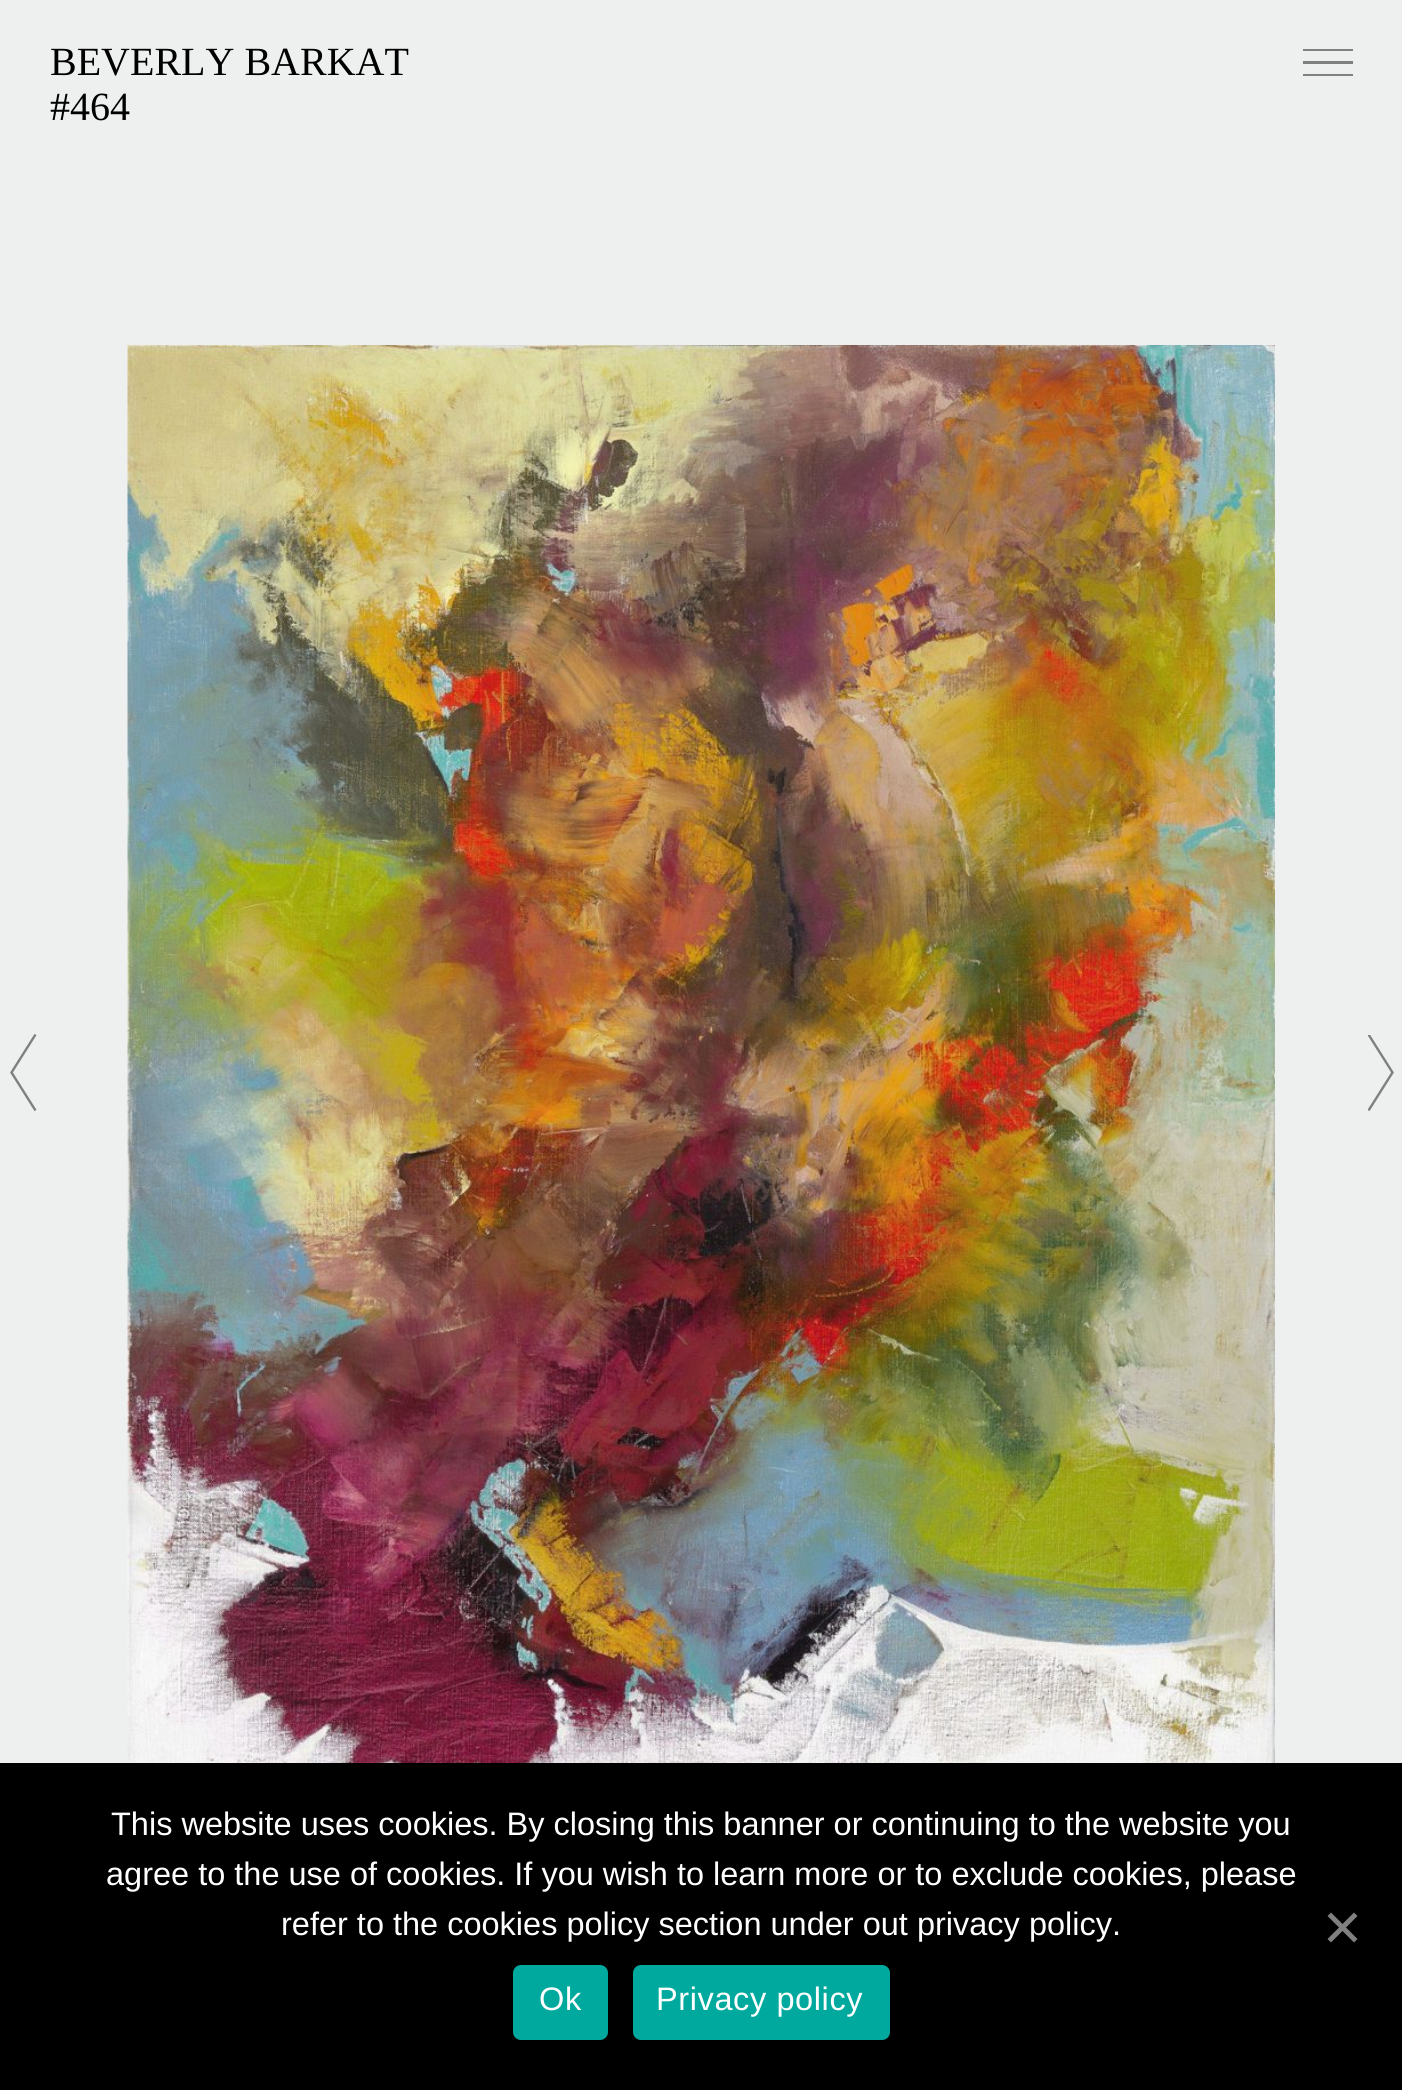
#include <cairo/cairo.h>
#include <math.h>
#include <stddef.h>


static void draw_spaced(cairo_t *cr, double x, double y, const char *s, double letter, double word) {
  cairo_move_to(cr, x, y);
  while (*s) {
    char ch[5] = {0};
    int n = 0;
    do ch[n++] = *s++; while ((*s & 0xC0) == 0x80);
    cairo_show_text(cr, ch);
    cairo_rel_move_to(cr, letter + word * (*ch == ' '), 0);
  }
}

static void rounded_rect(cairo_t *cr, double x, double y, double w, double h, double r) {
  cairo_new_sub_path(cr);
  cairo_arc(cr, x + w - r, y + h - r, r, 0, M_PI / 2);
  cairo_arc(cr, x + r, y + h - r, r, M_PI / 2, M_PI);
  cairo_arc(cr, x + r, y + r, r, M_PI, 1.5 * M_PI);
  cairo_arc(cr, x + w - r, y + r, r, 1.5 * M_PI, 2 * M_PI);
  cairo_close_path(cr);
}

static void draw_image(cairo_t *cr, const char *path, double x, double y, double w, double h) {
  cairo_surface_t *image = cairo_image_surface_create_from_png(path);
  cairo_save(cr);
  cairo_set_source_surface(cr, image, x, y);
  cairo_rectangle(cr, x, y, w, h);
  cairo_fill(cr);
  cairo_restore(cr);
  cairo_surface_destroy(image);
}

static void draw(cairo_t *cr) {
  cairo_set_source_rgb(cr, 238 / 255.0, 239 / 255.0, 239 / 255.0);
  cairo_paint(cr);
  cairo_set_source_rgb(cr, 128 / 255.0, 128 / 255.0, 128 / 255.0);
  cairo_rectangle(cr, 1303, 49, 50, 2);
  cairo_fill(cr);
  cairo_rectangle(cr, 1303, 74, 50, 2);
  cairo_fill(cr);
  cairo_rectangle(cr, 1303, 61, 50, 3);
  cairo_fill(cr);
  cairo_new_path(cr);
  cairo_move_to(cr, 35.5, 1034.5);
  cairo_line_to(cr, 11.5, 1072.5);
  cairo_line_to(cr, 35.5, 1110.5);
  cairo_set_line_width(cr, 2.4);
  cairo_stroke(cr);
  draw_image(cr, "images/1.png", 127, 345, 1148, 1418);
  cairo_save(cr);
  cairo_rectangle(cr, 1368, 1035, 27, 78);
  cairo_clip(cr);
  cairo_new_path(cr);
  cairo_move_to(cr, 1368.5, 1034.5);
  cairo_line_to(cr, 1392.5, 1072.5);
  cairo_line_to(cr, 1368.5, 1110.5);
  cairo_stroke(cr);
  cairo_restore(cr);
  cairo_set_source_rgb(cr, 0, 0, 0);
  cairo_rectangle(cr, 0, 1763, 1402, 327);
  cairo_fill(cr);
  cairo_set_source_rgb(cr, 128 / 255.0, 128 / 255.0, 128 / 255.0);
  cairo_new_path(cr);
  cairo_move_to(cr, 1354, 1912.5);
  cairo_line_to(cr, 1357.5, 1916);
  cairo_line_to(cr, 1331, 1942.5);
  cairo_line_to(cr, 1327.5, 1939);
  cairo_close_path(cr);
  cairo_fill(cr);
  cairo_new_path(cr);
  cairo_move_to(cr, 1327.5, 1916);
  cairo_line_to(cr, 1331, 1912.5);
  cairo_line_to(cr, 1357.5, 1939);
  cairo_line_to(cr, 1354, 1942.5);
  cairo_close_path(cr);
  cairo_fill(cr);
  cairo_set_source_rgb(cr, 0, 169 / 255.0, 157 / 255.0);
  rounded_rect(cr, 513, 1965, 95, 75, 8);
  cairo_fill(cr);
  rounded_rect(cr, 633, 1965, 257, 75, 8);
  cairo_fill(cr);
  cairo_select_font_face(cr, "Liberation Serif", CAIRO_FONT_SLANT_NORMAL, CAIRO_FONT_WEIGHT_NORMAL);
  cairo_set_font_size(cr, 40);
  cairo_set_source_rgb(cr, 0, 0, 0);
  cairo_move_to(cr, 50, 75);
  cairo_show_text(cr, "BEVERLY BARKAT");
  cairo_move_to(cr, 50, 120);
  cairo_show_text(cr, "#464");
  cairo_select_font_face(cr, "Liberation Sans", CAIRO_FONT_SLANT_NORMAL, CAIRO_FONT_WEIGHT_NORMAL);
  cairo_set_font_size(cr, 32.5);
  cairo_set_source_rgb(cr, 1, 1, 1);
  cairo_move_to(cr, 111, 1835);
  cairo_show_text(cr, "This website uses cookies. By closing this banner or continuing to the website you");
  cairo_move_to(cr, 106, 1885);
  cairo_show_text(cr, "agree to the use of cookies. If you wish to learn more or to exclude cookies, please");
  cairo_move_to(cr, 281, 1935);
  cairo_show_text(cr, "refer to the cookies policy section under out privacy policy.");
  draw_spaced(cr, 539, 2010, "Ok", 0.6, 0);
  draw_spaced(cr, 656, 2010, "Privacy policy", 0.6, 0);
}

int main(void) {
  cairo_surface_t *surface = cairo_image_surface_create(CAIRO_FORMAT_RGB24, 1402, 2090);
  cairo_t *cr = cairo_create(surface);
  cairo_font_options_t *options = cairo_font_options_create();
  cairo_font_options_set_hint_metrics(options, CAIRO_HINT_METRICS_OFF);
  cairo_font_options_set_hint_style(options, CAIRO_HINT_STYLE_NONE);
  cairo_set_font_options(cr, options);
  cairo_set_miter_limit(cr, 4);
  draw(cr);
  cairo_surface_write_to_png(surface, "out.png");
  cairo_font_options_destroy(options);
  cairo_destroy(cr);
  cairo_surface_destroy(surface);
  return 0;
}
